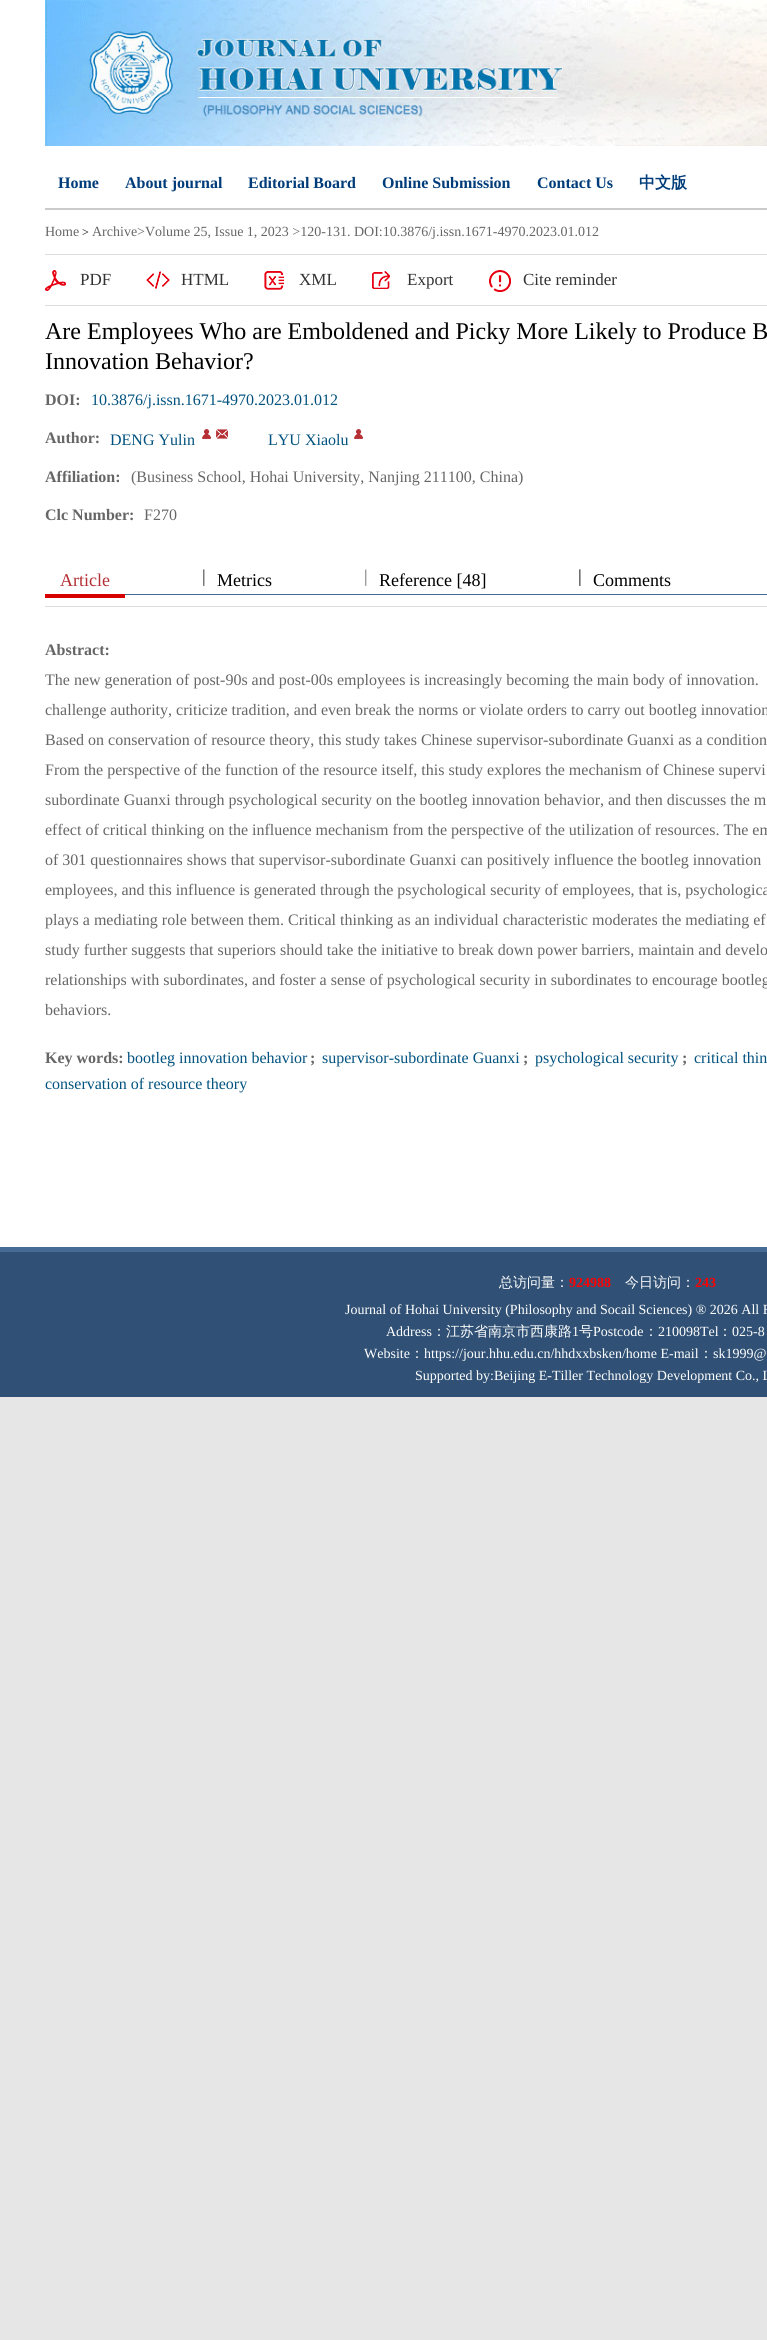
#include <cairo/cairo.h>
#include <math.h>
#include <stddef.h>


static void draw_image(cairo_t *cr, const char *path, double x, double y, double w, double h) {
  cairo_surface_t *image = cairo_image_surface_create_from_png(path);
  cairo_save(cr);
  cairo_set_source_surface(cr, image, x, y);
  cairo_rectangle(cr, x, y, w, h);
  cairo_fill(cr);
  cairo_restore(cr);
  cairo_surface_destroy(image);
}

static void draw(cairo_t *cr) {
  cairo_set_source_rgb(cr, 230 / 255.0, 230 / 255.0, 230 / 255.0);
  cairo_paint(cr);
  cairo_set_source_rgb(cr, 1, 1, 1);
  cairo_rectangle(cr, 0, 0, 767, 1247);
  cairo_fill(cr);
  draw_image(cr, "images/1.png", 45, 0, 722, 146);
  cairo_set_source_rgb(cr, 203 / 255.0, 203 / 255.0, 203 / 255.0);
  cairo_rectangle(cr, 45, 208, 722, 2);
  cairo_fill(cr);
  cairo_set_source_rgb(cr, 221 / 255.0, 221 / 255.0, 221 / 255.0);
  cairo_rectangle(cr, 45, 254, 722, 1);
  cairo_fill(cr);
  cairo_rectangle(cr, 45, 305, 722, 1);
  cairo_fill(cr);
  draw_image(cr, "images/2.png", 45, 270, 21, 21);
  draw_image(cr, "images/3.png", 146, 271, 24, 18);
  draw_image(cr, "images/4.png", 264, 271, 20, 19);
  draw_image(cr, "images/5.png", 372, 271, 18, 18);
  draw_image(cr, "images/6.png", 489, 270, 22, 22);
  draw_image(cr, "images/7.png", 202, 429, 9, 10);
  draw_image(cr, "images/8.png", 216, 429, 12, 10);
  draw_image(cr, "images/7.png", 354, 429, 9, 10);
  cairo_set_source_rgb(cr, 70 / 255.0, 108 / 255.0, 149 / 255.0);
  cairo_rectangle(cr, 125, 594, 642, 1);
  cairo_fill(cr);
  cairo_set_source_rgb(cr, 221 / 255.0, 221 / 255.0, 221 / 255.0);
  cairo_rectangle(cr, 45, 606, 722, 1);
  cairo_fill(cr);
  cairo_set_source_rgb(cr, 214 / 255.0, 0, 0);
  cairo_rectangle(cr, 45, 594, 80, 4);
  cairo_fill(cr);
  cairo_set_source_rgb(cr, 70 / 255.0, 108 / 255.0, 149 / 255.0);
  cairo_rectangle(cr, 0, 1247, 767, 5);
  cairo_fill(cr);
  cairo_set_source_rgb(cr, 48 / 255.0, 81 / 255.0, 117 / 255.0);
  cairo_rectangle(cr, 0, 1252, 767, 145);
  cairo_fill(cr);
  cairo_select_font_face(cr, "Liberation Serif", CAIRO_FONT_SLANT_NORMAL, CAIRO_FONT_WEIGHT_BOLD);
  cairo_set_font_size(cr, 16);
  cairo_set_source_rgb(cr, 0, 60 / 255.0, 122 / 255.0);
  cairo_move_to(cr, 58, 188);
  cairo_show_text(cr, "Home");
  cairo_move_to(cr, 125, 188);
  cairo_show_text(cr, "About journal");
  cairo_move_to(cr, 248, 188);
  cairo_show_text(cr, "Editorial Board");
  cairo_move_to(cr, 382, 188);
  cairo_show_text(cr, "Online Submission");
  cairo_move_to(cr, 537, 188);
  cairo_show_text(cr, "Contact Us");
  cairo_select_font_face(cr, "WenQuanYi Zen Hei", CAIRO_FONT_SLANT_NORMAL, CAIRO_FONT_WEIGHT_BOLD);
  cairo_move_to(cr, 639, 188);
  cairo_show_text(cr, "中文版");
  cairo_select_font_face(cr, "Liberation Serif", CAIRO_FONT_SLANT_NORMAL, CAIRO_FONT_WEIGHT_NORMAL);
  cairo_set_font_size(cr, 14);
  cairo_set_source_rgb(cr, 102 / 255.0, 102 / 255.0, 102 / 255.0);
  cairo_move_to(cr, 45, 236);
  cairo_show_text(cr, "Home");
  cairo_set_font_size(cr, 12);
  cairo_set_source_rgb(cr, 0, 0, 0);
  cairo_move_to(cr, 82, 236);
  cairo_show_text(cr, ">");
  cairo_set_font_size(cr, 14);
  cairo_set_source_rgb(cr, 102 / 255.0, 102 / 255.0, 102 / 255.0);
  cairo_move_to(cr, 92, 236);
  cairo_show_text(cr, "Archive>Volume 25, Issue 1, 2023 >120-131. DOI:10.3876/j.issn.1671-4970.2023.01.012");
  cairo_set_font_size(cr, 17);
  cairo_set_source_rgb(cr, 51 / 255.0, 51 / 255.0, 51 / 255.0);
  cairo_move_to(cr, 80, 285);
  cairo_show_text(cr, "PDF");
  cairo_move_to(cr, 181, 285);
  cairo_show_text(cr, "HTML");
  cairo_move_to(cr, 299, 285);
  cairo_show_text(cr, "XML");
  cairo_move_to(cr, 407, 285);
  cairo_show_text(cr, "Export");
  cairo_move_to(cr, 523, 285);
  cairo_show_text(cr, "Cite reminder");
  cairo_set_font_size(cr, 24);
  cairo_set_source_rgb(cr, 0, 0, 0);
  cairo_move_to(cr, 45, 339);
  cairo_show_text(cr, "Are Employees Who are Emboldened and Picky More Likely to Produce B");
  cairo_move_to(cr, 45, 369);
  cairo_show_text(cr, "Innovation Behavior?");
  cairo_select_font_face(cr, "Liberation Serif", CAIRO_FONT_SLANT_NORMAL, CAIRO_FONT_WEIGHT_BOLD);
  cairo_set_font_size(cr, 16);
  cairo_set_source_rgb(cr, 102 / 255.0, 102 / 255.0, 102 / 255.0);
  cairo_move_to(cr, 45, 405);
  cairo_show_text(cr, "DOI:");
  cairo_select_font_face(cr, "Liberation Serif", CAIRO_FONT_SLANT_NORMAL, CAIRO_FONT_WEIGHT_NORMAL);
  cairo_set_source_rgb(cr, 1 / 255.0, 82 / 255.0, 127 / 255.0);
  cairo_move_to(cr, 91, 405);
  cairo_show_text(cr, "10.3876/j.issn.1671-4970.2023.01.012");
  cairo_select_font_face(cr, "Liberation Serif", CAIRO_FONT_SLANT_NORMAL, CAIRO_FONT_WEIGHT_BOLD);
  cairo_set_source_rgb(cr, 102 / 255.0, 102 / 255.0, 102 / 255.0);
  cairo_move_to(cr, 45, 443);
  cairo_show_text(cr, "Author:");
  cairo_select_font_face(cr, "Liberation Serif", CAIRO_FONT_SLANT_NORMAL, CAIRO_FONT_WEIGHT_NORMAL);
  cairo_set_source_rgb(cr, 1 / 255.0, 82 / 255.0, 127 / 255.0);
  cairo_move_to(cr, 110, 445);
  cairo_show_text(cr, "DENG Yulin");
  cairo_move_to(cr, 268, 445);
  cairo_show_text(cr, "LYU Xiaolu");
  cairo_select_font_face(cr, "Liberation Serif", CAIRO_FONT_SLANT_NORMAL, CAIRO_FONT_WEIGHT_BOLD);
  cairo_set_source_rgb(cr, 102 / 255.0, 102 / 255.0, 102 / 255.0);
  cairo_move_to(cr, 45, 482);
  cairo_show_text(cr, "Affiliation:");
  cairo_select_font_face(cr, "Liberation Serif", CAIRO_FONT_SLANT_NORMAL, CAIRO_FONT_WEIGHT_NORMAL);
  cairo_move_to(cr, 131, 482);
  cairo_show_text(cr, "(Business School, Hohai University, Nanjing 211100, China)");
  cairo_select_font_face(cr, "Liberation Serif", CAIRO_FONT_SLANT_NORMAL, CAIRO_FONT_WEIGHT_BOLD);
  cairo_move_to(cr, 45, 520);
  cairo_show_text(cr, "Clc Number:");
  cairo_select_font_face(cr, "Liberation Serif", CAIRO_FONT_SLANT_NORMAL, CAIRO_FONT_WEIGHT_NORMAL);
  cairo_move_to(cr, 144, 520);
  cairo_show_text(cr, "F270");
  cairo_set_font_size(cr, 18);
  cairo_move_to(cr, 202, 582);
  cairo_show_text(cr, "|");
  cairo_move_to(cr, 202, 582);
  cairo_show_text(cr, "|");
  cairo_move_to(cr, 364, 582);
  cairo_show_text(cr, "|");
  cairo_move_to(cr, 578, 582);
  cairo_show_text(cr, "|");
  cairo_move_to(cr, 578, 582);
  cairo_show_text(cr, "|");
  cairo_set_source_rgb(cr, 181 / 255.0, 48 / 255.0, 53 / 255.0);
  cairo_move_to(cr, 60, 586);
  cairo_show_text(cr, "Article");
  cairo_set_source_rgb(cr, 0, 0, 0);
  cairo_move_to(cr, 217, 586);
  cairo_show_text(cr, "Metrics");
  cairo_move_to(cr, 379, 586);
  cairo_show_text(cr, "Reference [48]");
  cairo_set_source_rgb(cr, 102 / 255.0, 102 / 255.0, 102 / 255.0);
  cairo_move_to(cr, 578, 582);
  cairo_show_text(cr, "|");
  cairo_set_source_rgb(cr, 0, 0, 0);
  cairo_move_to(cr, 593, 586);
  cairo_show_text(cr, "Comments");
  cairo_select_font_face(cr, "Liberation Serif", CAIRO_FONT_SLANT_NORMAL, CAIRO_FONT_WEIGHT_BOLD);
  cairo_set_font_size(cr, 16);
  cairo_set_source_rgb(cr, 102 / 255.0, 102 / 255.0, 102 / 255.0);
  cairo_move_to(cr, 45, 655);
  cairo_show_text(cr, "Abstract:");
  cairo_select_font_face(cr, "Liberation Serif", CAIRO_FONT_SLANT_NORMAL, CAIRO_FONT_WEIGHT_NORMAL);
  cairo_move_to(cr, 45, 685);
  cairo_show_text(cr, "The new generation of post-90s and post-00s employees is increasingly becoming the main body of innovation.");
  cairo_move_to(cr, 45, 715);
  cairo_show_text(cr, "challenge authority, criticize tradition, and even break the norms or violate orders to carry out bootleg innovation");
  cairo_move_to(cr, 45, 745);
  cairo_show_text(cr, "Based on conservation of resource theory, this study takes Chinese supervisor-subordinate Guanxi as a condition");
  cairo_move_to(cr, 45, 775);
  cairo_show_text(cr, "From the perspective of the function of the resource itself, this study explores the mechanism of Chinese supervi");
  cairo_move_to(cr, 45, 805);
  cairo_show_text(cr, "subordinate Guanxi through psychological security on the bootleg innovation behavior, and then discusses the m");
  cairo_move_to(cr, 45, 835);
  cairo_show_text(cr, "effect of critical thinking on the influence mechanism from the perspective of the utilization of resources. The em");
  cairo_move_to(cr, 45, 865);
  cairo_show_text(cr, "of 301 questionnaires shows that supervisor-subordinate Guanxi can positively influence the bootleg innovation");
  cairo_move_to(cr, 45, 895);
  cairo_show_text(cr, "employees, and this influence is generated through the psychological security of employees, that is, psychologica");
  cairo_move_to(cr, 45, 925);
  cairo_show_text(cr, "plays a mediating role between them. Critical thinking as an individual characteristic moderates the mediating ef");
  cairo_move_to(cr, 45, 955);
  cairo_show_text(cr, "study further suggests that superiors should take the initiative to break down power barriers, maintain and develo");
  cairo_move_to(cr, 45, 985);
  cairo_show_text(cr, "relationships with subordinates, and foster a sense of psychological security in subordinates to encourage bootleg");
  cairo_move_to(cr, 45, 1015);
  cairo_show_text(cr, "behaviors.");
  cairo_select_font_face(cr, "Liberation Serif", CAIRO_FONT_SLANT_NORMAL, CAIRO_FONT_WEIGHT_BOLD);
  cairo_move_to(cr, 45, 1063);
  cairo_show_text(cr, "Key words:");
  cairo_select_font_face(cr, "Liberation Serif", CAIRO_FONT_SLANT_NORMAL, CAIRO_FONT_WEIGHT_NORMAL);
  cairo_set_source_rgb(cr, 1 / 255.0, 82 / 255.0, 127 / 255.0);
  cairo_move_to(cr, 127, 1063);
  cairo_show_text(cr, "bootleg innovation behavior");
  cairo_select_font_face(cr, "Liberation Serif", CAIRO_FONT_SLANT_NORMAL, CAIRO_FONT_WEIGHT_BOLD);
  cairo_set_source_rgb(cr, 102 / 255.0, 102 / 255.0, 102 / 255.0);
  cairo_move_to(cr, 310, 1063);
  cairo_show_text(cr, ";");
  cairo_select_font_face(cr, "Liberation Serif", CAIRO_FONT_SLANT_NORMAL, CAIRO_FONT_WEIGHT_NORMAL);
  cairo_set_source_rgb(cr, 1 / 255.0, 82 / 255.0, 127 / 255.0);
  cairo_move_to(cr, 322, 1063);
  cairo_show_text(cr, "supervisor-subordinate Guanxi");
  cairo_select_font_face(cr, "Liberation Serif", CAIRO_FONT_SLANT_NORMAL, CAIRO_FONT_WEIGHT_BOLD);
  cairo_set_source_rgb(cr, 102 / 255.0, 102 / 255.0, 102 / 255.0);
  cairo_move_to(cr, 523, 1063);
  cairo_show_text(cr, ";");
  cairo_select_font_face(cr, "Liberation Serif", CAIRO_FONT_SLANT_NORMAL, CAIRO_FONT_WEIGHT_NORMAL);
  cairo_set_source_rgb(cr, 1 / 255.0, 82 / 255.0, 127 / 255.0);
  cairo_move_to(cr, 535, 1063);
  cairo_show_text(cr, "psychological security");
  cairo_select_font_face(cr, "Liberation Serif", CAIRO_FONT_SLANT_NORMAL, CAIRO_FONT_WEIGHT_BOLD);
  cairo_set_source_rgb(cr, 102 / 255.0, 102 / 255.0, 102 / 255.0);
  cairo_move_to(cr, 682, 1063);
  cairo_show_text(cr, ";");
  cairo_select_font_face(cr, "Liberation Serif", CAIRO_FONT_SLANT_NORMAL, CAIRO_FONT_WEIGHT_NORMAL);
  cairo_set_source_rgb(cr, 1 / 255.0, 82 / 255.0, 127 / 255.0);
  cairo_move_to(cr, 694, 1063);
  cairo_show_text(cr, "critical thin");
  cairo_move_to(cr, 45, 1089);
  cairo_show_text(cr, "conservation of resource theory");
  cairo_select_font_face(cr, "WenQuanYi Zen Hei Medium", CAIRO_FONT_SLANT_NORMAL, CAIRO_FONT_WEIGHT_NORMAL);
  cairo_set_font_size(cr, 14);
  cairo_set_source_rgb(cr, 1, 1, 1);
  cairo_move_to(cr, 499, 1287);
  cairo_show_text(cr, "总访问量：");
  cairo_select_font_face(cr, "Liberation Serif", CAIRO_FONT_SLANT_NORMAL, CAIRO_FONT_WEIGHT_BOLD);
  cairo_set_source_rgb(cr, 1, 0, 0);
  cairo_move_to(cr, 569, 1287);
  cairo_show_text(cr, "924988");
  cairo_select_font_face(cr, "WenQuanYi Zen Hei Medium", CAIRO_FONT_SLANT_NORMAL, CAIRO_FONT_WEIGHT_NORMAL);
  cairo_set_source_rgb(cr, 1, 1, 1);
  cairo_move_to(cr, 625, 1287);
  cairo_show_text(cr, "今日访问：");
  cairo_select_font_face(cr, "Liberation Serif", CAIRO_FONT_SLANT_NORMAL, CAIRO_FONT_WEIGHT_BOLD);
  cairo_set_source_rgb(cr, 1, 0, 0);
  cairo_move_to(cr, 695, 1287);
  cairo_show_text(cr, "243");
  cairo_select_font_face(cr, "Liberation Serif", CAIRO_FONT_SLANT_NORMAL, CAIRO_FONT_WEIGHT_NORMAL);
  cairo_set_source_rgb(cr, 1, 1, 1);
  cairo_move_to(cr, 345, 1314);
  cairo_show_text(cr, "Journal of Hohai University (Philosophy and Socail Sciences) ® 2026 All R");
  cairo_move_to(cr, 386, 1336);
  cairo_show_text(cr, "Address");
  cairo_select_font_face(cr, "WenQuanYi Zen Hei Medium", CAIRO_FONT_SLANT_NORMAL, CAIRO_FONT_WEIGHT_NORMAL);
  cairo_move_to(cr, 432, 1336);
  cairo_show_text(cr, "：江苏省南京市西康路");
  cairo_select_font_face(cr, "Liberation Serif", CAIRO_FONT_SLANT_NORMAL, CAIRO_FONT_WEIGHT_NORMAL);
  cairo_move_to(cr, 572, 1336);
  cairo_show_text(cr, "1");
  cairo_select_font_face(cr, "WenQuanYi Zen Hei Medium", CAIRO_FONT_SLANT_NORMAL, CAIRO_FONT_WEIGHT_NORMAL);
  cairo_move_to(cr, 579, 1336);
  cairo_show_text(cr, "号");
  cairo_select_font_face(cr, "Liberation Serif", CAIRO_FONT_SLANT_NORMAL, CAIRO_FONT_WEIGHT_NORMAL);
  cairo_move_to(cr, 593, 1336);
  cairo_show_text(cr, "Postcode");
  cairo_select_font_face(cr, "WenQuanYi Zen Hei Medium", CAIRO_FONT_SLANT_NORMAL, CAIRO_FONT_WEIGHT_NORMAL);
  cairo_move_to(cr, 644, 1336);
  cairo_show_text(cr, "：");
  cairo_select_font_face(cr, "Liberation Serif", CAIRO_FONT_SLANT_NORMAL, CAIRO_FONT_WEIGHT_NORMAL);
  cairo_move_to(cr, 658, 1336);
  cairo_show_text(cr, "210098Tel");
  cairo_select_font_face(cr, "WenQuanYi Zen Hei Medium", CAIRO_FONT_SLANT_NORMAL, CAIRO_FONT_WEIGHT_NORMAL);
  cairo_move_to(cr, 718, 1336);
  cairo_show_text(cr, "：");
  cairo_select_font_face(cr, "Liberation Serif", CAIRO_FONT_SLANT_NORMAL, CAIRO_FONT_WEIGHT_NORMAL);
  cairo_move_to(cr, 732, 1336);
  cairo_show_text(cr, "025-8");
  cairo_move_to(cr, 364, 1358);
  cairo_show_text(cr, "Website");
  cairo_select_font_face(cr, "WenQuanYi Zen Hei Medium", CAIRO_FONT_SLANT_NORMAL, CAIRO_FONT_WEIGHT_NORMAL);
  cairo_move_to(cr, 410, 1358);
  cairo_show_text(cr, "：");
  cairo_select_font_face(cr, "Liberation Serif", CAIRO_FONT_SLANT_NORMAL, CAIRO_FONT_WEIGHT_NORMAL);
  cairo_move_to(cr, 424, 1358);
  cairo_show_text(cr, "https://jour.hhu.edu.cn/hhdxxbsken/home E-mail");
  cairo_select_font_face(cr, "WenQuanYi Zen Hei Medium", CAIRO_FONT_SLANT_NORMAL, CAIRO_FONT_WEIGHT_NORMAL);
  cairo_move_to(cr, 699, 1358);
  cairo_show_text(cr, "：");
  cairo_select_font_face(cr, "Liberation Serif", CAIRO_FONT_SLANT_NORMAL, CAIRO_FONT_WEIGHT_NORMAL);
  cairo_move_to(cr, 713, 1358);
  cairo_show_text(cr, "sk1999@");
  cairo_move_to(cr, 415, 1380);
  cairo_show_text(cr, "Supported by:Beijing E-Tiller Technology Development Co., L");
}

int main(void) {
  cairo_surface_t *surface = cairo_image_surface_create(CAIRO_FORMAT_RGB24, 767, 2340);
  cairo_t *cr = cairo_create(surface);
  cairo_font_options_t *options = cairo_font_options_create();
  cairo_font_options_set_hint_metrics(options, CAIRO_HINT_METRICS_OFF);
  cairo_font_options_set_hint_style(options, CAIRO_HINT_STYLE_NONE);
  cairo_set_font_options(cr, options);
  cairo_set_miter_limit(cr, 4);
  draw(cr);
  cairo_surface_write_to_png(surface, "out.png");
  cairo_font_options_destroy(options);
  cairo_destroy(cr);
  cairo_surface_destroy(surface);
  return 0;
}
